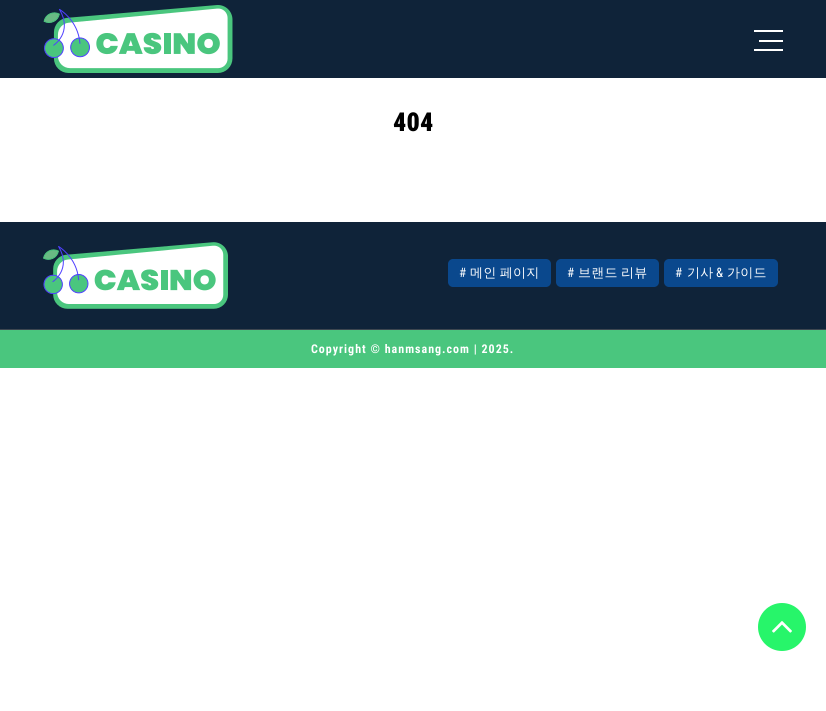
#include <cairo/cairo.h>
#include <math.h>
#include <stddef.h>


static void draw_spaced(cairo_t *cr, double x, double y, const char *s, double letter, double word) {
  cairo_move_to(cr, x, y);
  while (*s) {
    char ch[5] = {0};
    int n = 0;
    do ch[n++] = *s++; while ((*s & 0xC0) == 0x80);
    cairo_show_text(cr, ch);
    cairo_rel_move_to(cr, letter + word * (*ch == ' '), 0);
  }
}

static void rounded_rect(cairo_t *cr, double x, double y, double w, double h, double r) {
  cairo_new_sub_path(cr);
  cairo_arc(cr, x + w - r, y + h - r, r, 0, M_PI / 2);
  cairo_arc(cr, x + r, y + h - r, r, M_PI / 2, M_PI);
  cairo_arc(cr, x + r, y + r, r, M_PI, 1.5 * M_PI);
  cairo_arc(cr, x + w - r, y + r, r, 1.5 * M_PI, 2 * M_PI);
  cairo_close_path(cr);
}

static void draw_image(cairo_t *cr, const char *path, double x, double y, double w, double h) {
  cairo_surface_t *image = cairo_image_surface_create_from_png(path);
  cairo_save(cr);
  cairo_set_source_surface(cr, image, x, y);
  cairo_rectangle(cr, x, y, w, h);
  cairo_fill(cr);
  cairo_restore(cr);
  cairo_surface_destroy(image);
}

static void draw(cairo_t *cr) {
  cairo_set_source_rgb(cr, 1, 1, 1);
  cairo_paint(cr);
  cairo_set_source_rgb(cr, 15 / 255.0, 35 / 255.0, 57 / 255.0);
  cairo_rectangle(cr, 0, 0, 826, 78);
  cairo_fill(cr);
  draw_image(cr, "images/1.png", 43, 5, 190, 68);
  cairo_set_source_rgb(cr, 1, 1, 1);
  cairo_rectangle(cr, 754, 30, 29, 2);
  cairo_fill(cr);
  cairo_rectangle(cr, 759, 40, 24, 2);
  cairo_fill(cr);
  cairo_rectangle(cr, 754, 49, 29, 2);
  cairo_fill(cr);
  cairo_set_source_rgb(cr, 15 / 255.0, 35 / 255.0, 57 / 255.0);
  cairo_rectangle(cr, 0, 222, 826, 107);
  cairo_fill(cr);
  cairo_set_source_rgb(cr, 61 / 255.0, 70 / 255.0, 80 / 255.0);
  cairo_rectangle(cr, 0, 329, 826, 1);
  cairo_fill(cr);
  draw_image(cr, "images/2.png", 43, 242, 185, 67);
  cairo_set_source_rgb(cr, 10 / 255.0, 72 / 255.0, 141 / 255.0);
  rounded_rect(cr, 448, 259, 103, 28, 5);
  cairo_fill(cr);
  rounded_rect(cr, 556, 259, 103, 28, 5);
  cairo_fill(cr);
  rounded_rect(cr, 664, 259, 114, 28, 5);
  cairo_fill(cr);
  cairo_set_source_rgb(cr, 74 / 255.0, 198 / 255.0, 126 / 255.0);
  cairo_rectangle(cr, 0, 330, 826, 38);
  cairo_fill(cr);
  cairo_set_source_rgb(cr, 39 / 255.0, 245 / 255.0, 106 / 255.0);
  cairo_arc(cr, 782, 627, 24, 0, 2 * M_PI);
  cairo_fill(cr);
  draw_image(cr, "images/3.png", 772, 621, 20, 12);
  cairo_select_font_face(cr, "Roboto Condensed Black", CAIRO_FONT_SLANT_NORMAL, CAIRO_FONT_WEIGHT_NORMAL);
  cairo_set_font_size(cr, 26);
  cairo_set_source_rgb(cr, 0, 0, 0);
  draw_spaced(cr, 393, 131, "404", 0.25, 0);
  cairo_select_font_face(cr, "Roboto Condensed", CAIRO_FONT_SLANT_NORMAL, CAIRO_FONT_WEIGHT_NORMAL);
  cairo_set_font_size(cr, 13);
  cairo_set_source_rgb(cr, 1, 1, 1);
  draw_spaced(cr, 459, 277, "#", 0.25, 0);
  cairo_select_font_face(cr, "WenQuanYi Zen Hei Medium", CAIRO_FONT_SLANT_NORMAL, CAIRO_FONT_WEIGHT_NORMAL);
  draw_spaced(cr, 470, 277, "메인 페이지", 0.25, -1);
  cairo_select_font_face(cr, "Roboto Condensed", CAIRO_FONT_SLANT_NORMAL, CAIRO_FONT_WEIGHT_NORMAL);
  draw_spaced(cr, 567, 277, "#", 0.25, 0);
  cairo_select_font_face(cr, "WenQuanYi Zen Hei Medium", CAIRO_FONT_SLANT_NORMAL, CAIRO_FONT_WEIGHT_NORMAL);
  draw_spaced(cr, 578, 277, "브랜드 리뷰", 0.25, -1);
  cairo_select_font_face(cr, "Roboto Condensed", CAIRO_FONT_SLANT_NORMAL, CAIRO_FONT_WEIGHT_NORMAL);
  draw_spaced(cr, 675, 277, "#", 0.25, 0);
  cairo_select_font_face(cr, "WenQuanYi Zen Hei Medium", CAIRO_FONT_SLANT_NORMAL, CAIRO_FONT_WEIGHT_NORMAL);
  draw_spaced(cr, 687, 277, "기사", 0.25, 0);
  cairo_select_font_face(cr, "Roboto Condensed", CAIRO_FONT_SLANT_NORMAL, CAIRO_FONT_WEIGHT_NORMAL);
  draw_spaced(cr, 716, 277, "&", 0.25, 0);
  cairo_select_font_face(cr, "WenQuanYi Zen Hei Medium", CAIRO_FONT_SLANT_NORMAL, CAIRO_FONT_WEIGHT_NORMAL);
  draw_spaced(cr, 727, 277, "가이드", 0.25, 0);
  cairo_select_font_face(cr, "Roboto Condensed", CAIRO_FONT_SLANT_NORMAL, CAIRO_FONT_WEIGHT_BOLD);
  cairo_set_font_size(cr, 12);
  draw_spaced(cr, 311, 353, "Copyright © hanmsang.com | 2025.", 1, 0);
}

int main(void) {
  cairo_surface_t *surface = cairo_image_surface_create(CAIRO_FORMAT_RGB24, 826, 711);
  cairo_t *cr = cairo_create(surface);
  cairo_font_options_t *options = cairo_font_options_create();
  cairo_font_options_set_hint_metrics(options, CAIRO_HINT_METRICS_OFF);
  cairo_font_options_set_hint_style(options, CAIRO_HINT_STYLE_NONE);
  cairo_set_font_options(cr, options);
  cairo_set_miter_limit(cr, 4);
  draw(cr);
  cairo_surface_write_to_png(surface, "out.png");
  cairo_font_options_destroy(options);
  cairo_destroy(cr);
  cairo_surface_destroy(surface);
  return 0;
}
